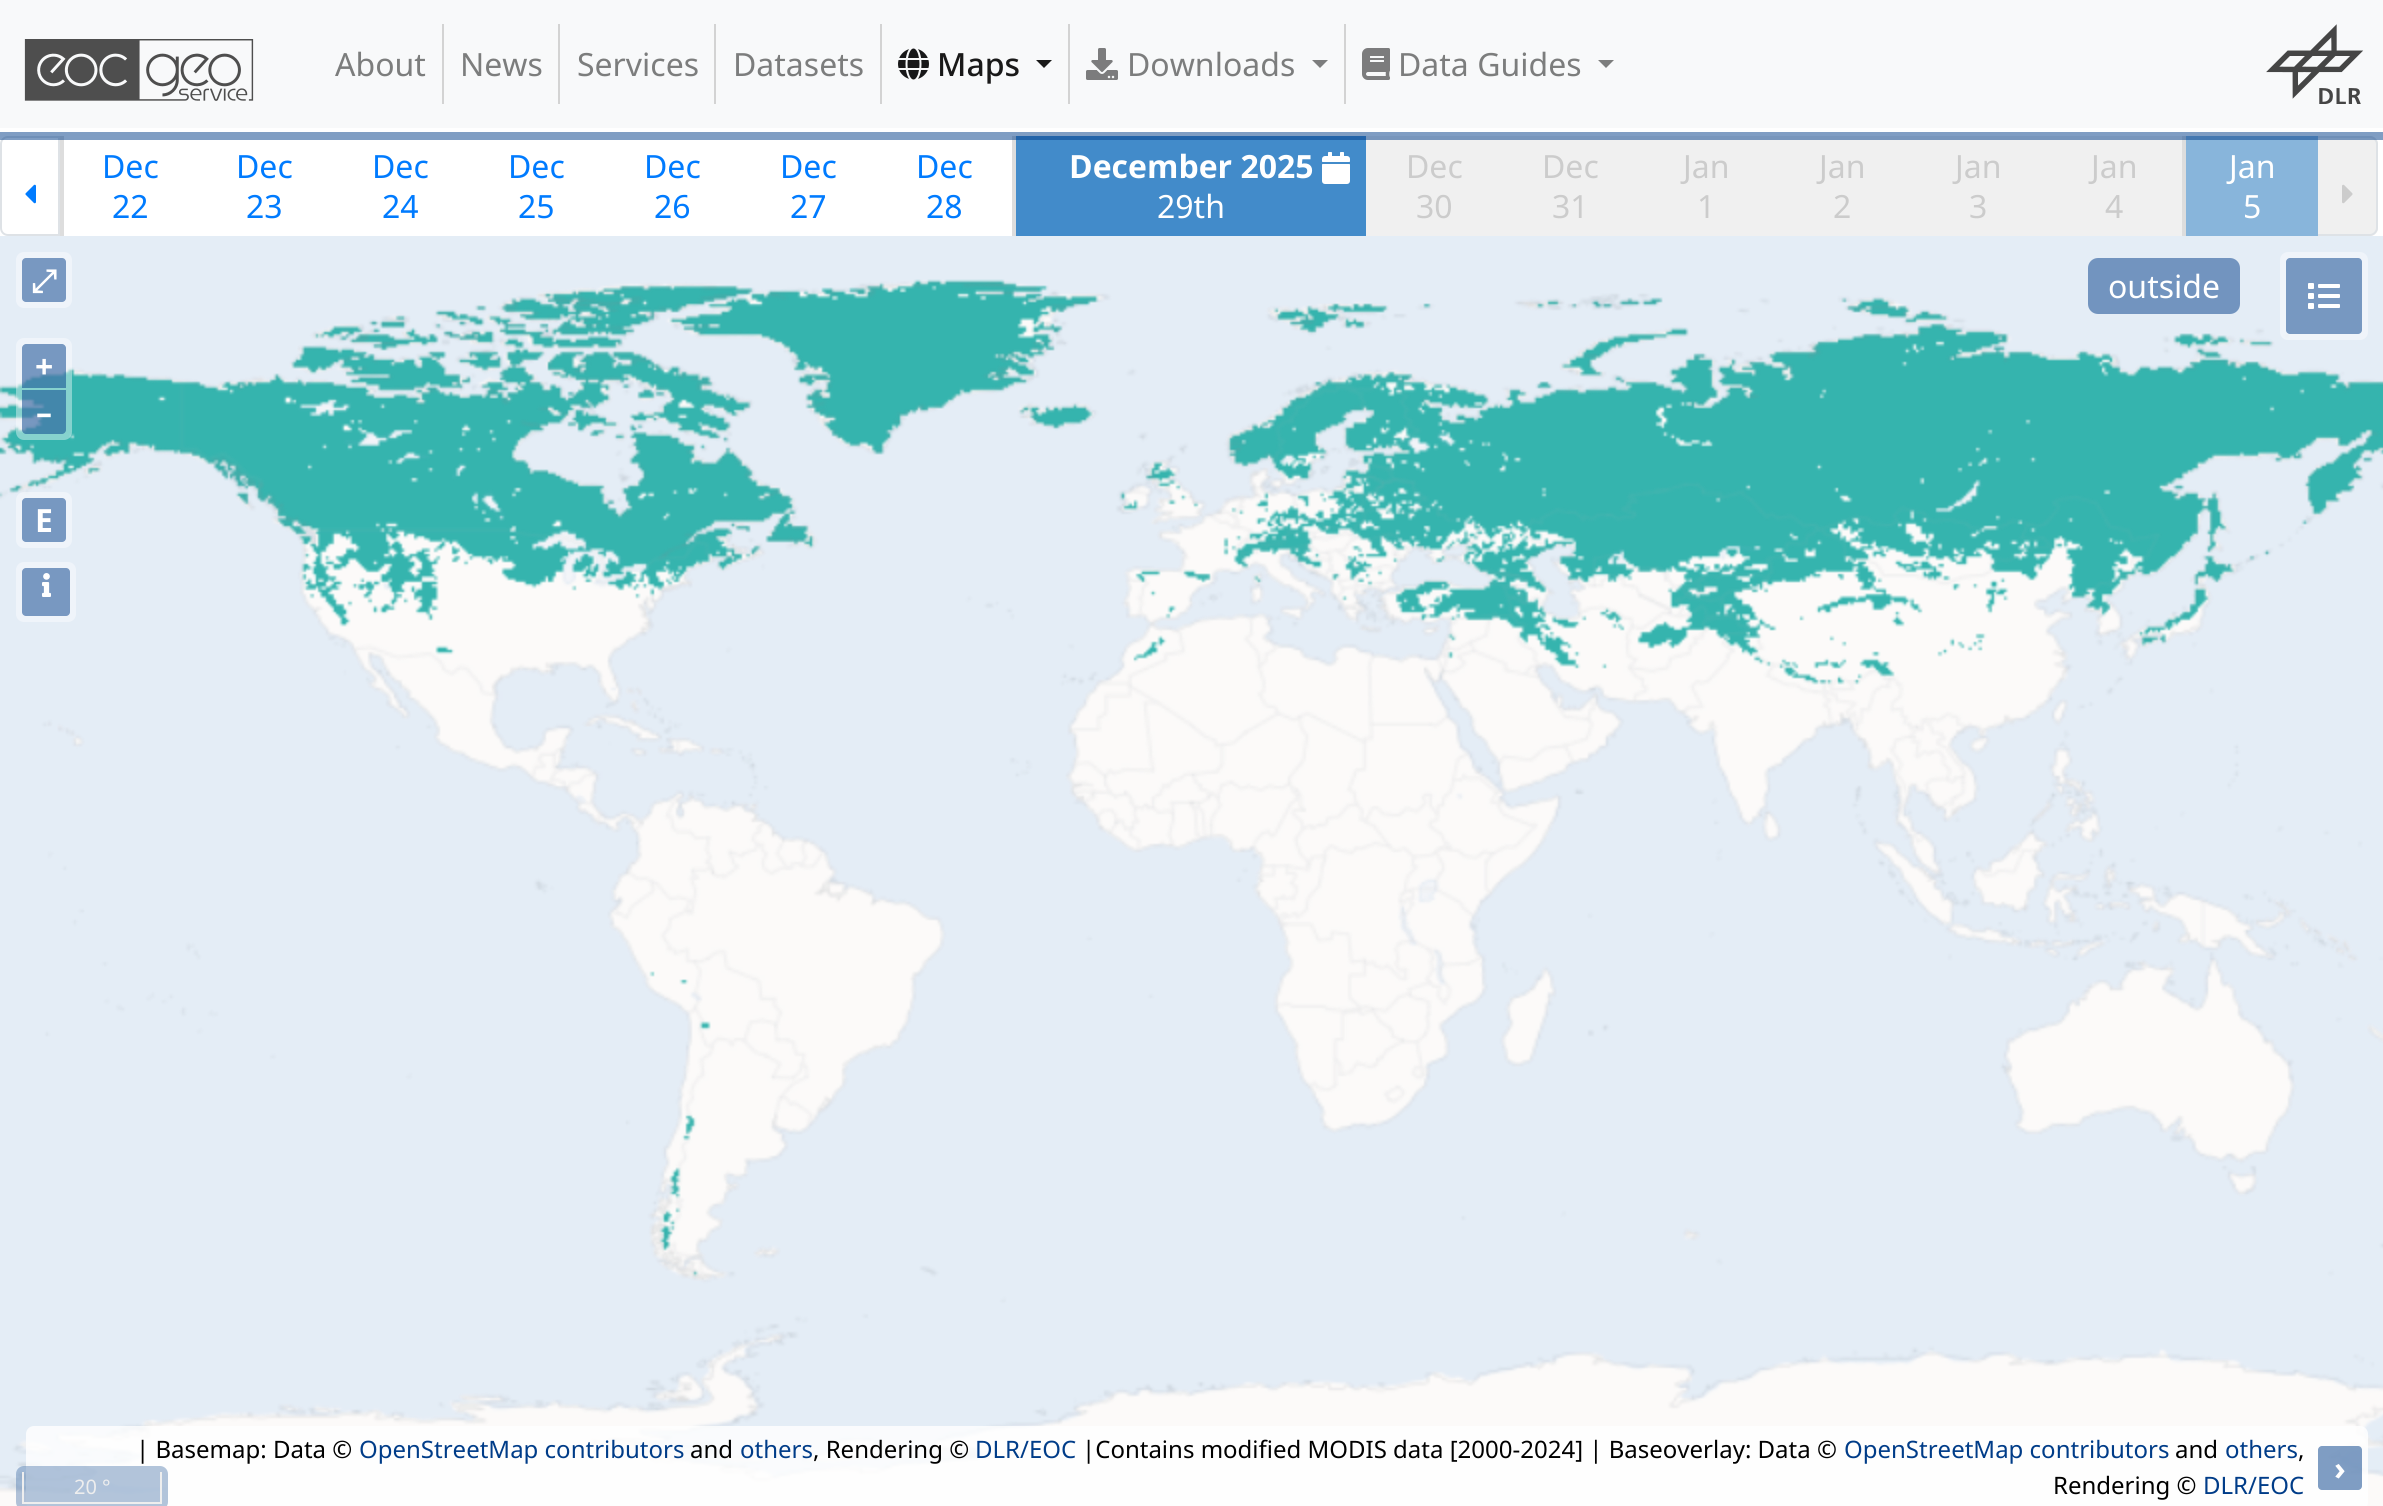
#include <cairo/cairo.h>
#include <math.h>
#include <stddef.h>


static void rounded_rect(cairo_t *cr, double x, double y, double w, double h, double r) {
  cairo_new_sub_path(cr);
  cairo_arc(cr, x + w - r, y + h - r, r, 0, M_PI / 2);
  cairo_arc(cr, x + r, y + h - r, r, M_PI / 2, M_PI);
  cairo_arc(cr, x + r, y + r, r, M_PI, 1.5 * M_PI);
  cairo_arc(cr, x + w - r, y + r, r, 1.5 * M_PI, 2 * M_PI);
  cairo_close_path(cr);
}

static void draw_image(cairo_t *cr, const char *path, double x, double y, double w, double h) {
  cairo_surface_t *image = cairo_image_surface_create_from_png(path);
  cairo_save(cr);
  cairo_set_source_surface(cr, image, x, y);
  cairo_rectangle(cr, x, y, w, h);
  cairo_fill(cr);
  cairo_restore(cr);
  cairo_surface_destroy(image);
}

static void draw(cairo_t *cr) {
  cairo_set_source_rgb(cr, 1, 1, 1);
  cairo_paint(cr);
  cairo_set_source_rgb(cr, 248 / 255.0, 249 / 255.0, 250 / 255.0);
  cairo_rectangle(cr, 0, 0, 2383, 128);
  cairo_fill(cr);
  draw_image(cr, "images/1.png", 24, 39, 230, 62);
  cairo_set_source_rgb(cr, 211 / 255.0, 211 / 255.0, 211 / 255.0);
  cairo_rectangle(cr, 442, 24, 2, 80);
  cairo_fill(cr);
  cairo_rectangle(cr, 558, 24, 2, 80);
  cairo_fill(cr);
  cairo_rectangle(cr, 714, 24, 2, 80);
  cairo_fill(cr);
  cairo_rectangle(cr, 880, 24, 2, 80);
  cairo_fill(cr);
  cairo_rectangle(cr, 1068, 24, 2, 80);
  cairo_fill(cr);
  draw_image(cr, "images/2.png", 898, 48, 31, 32);
  cairo_set_source_rgb(cr, 25 / 255.0, 25 / 255.0, 25 / 255.0);
  cairo_new_path(cr);
  cairo_move_to(cr, 1036, 60);
  cairo_line_to(cr, 1052, 60);
  cairo_line_to(cr, 1044, 68);
  cairo_close_path(cr);
  cairo_fill(cr);
  cairo_set_source_rgb(cr, 211 / 255.0, 211 / 255.0, 211 / 255.0);
  cairo_rectangle(cr, 1344, 24, 2, 80);
  cairo_fill(cr);
  draw_image(cr, "images/3.png", 1086, 48, 32, 32);
  cairo_set_source_rgb(cr, 124 / 255.0, 125 / 255.0, 125 / 255.0);
  cairo_new_path(cr);
  cairo_move_to(cr, 1312, 60);
  cairo_line_to(cr, 1328, 60);
  cairo_line_to(cr, 1320, 68);
  cairo_close_path(cr);
  cairo_fill(cr);
  draw_image(cr, "images/4.png", 1362, 48, 28, 32);
  cairo_new_path(cr);
  cairo_move_to(cr, 1598, 60);
  cairo_line_to(cr, 1614, 60);
  cairo_line_to(cr, 1606, 68);
  cairo_close_path(cr);
  cairo_fill(cr);
  draw_image(cr, "images/5.png", 2266, 24, 98, 80);
  cairo_new_path(cr);
  cairo_move_to(cr, 8, 137);
  cairo_line_to(cr, 59, 137);
  cairo_line_to(cr, 59, 235);
  cairo_line_to(cr, 8, 235);
  cairo_curve_to(cr, 4, 235, 1, 232, 1, 228);
  cairo_line_to(cr, 1, 144);
  cairo_curve_to(cr, 1, 140, 4, 137, 8, 137);
  cairo_close_path(cr);
  cairo_set_source_rgb(cr, 222 / 255.0, 226 / 255.0, 230 / 255.0);
  cairo_stroke(cr);
  cairo_set_source_rgb(cr, 221 / 255.0, 221 / 255.0, 221 / 255.0);
  cairo_rectangle(cr, 60, 136, 4, 100);
  cairo_fill(cr);
  cairo_set_source_rgb(cr, 66 / 255.0, 139 / 255.0, 202 / 255.0);
  cairo_rectangle(cr, 1016, 136, 350, 100);
  cairo_fill(cr);
  cairo_set_source_rgb(cr, 221 / 255.0, 221 / 255.0, 221 / 255.0);
  cairo_rectangle(cr, 1012, 136, 4, 100);
  cairo_fill(cr);
  cairo_set_source_rgb(cr, 240 / 255.0, 240 / 255.0, 240 / 255.0);
  cairo_rectangle(cr, 1366, 136, 816, 100);
  cairo_fill(cr);
  cairo_set_source_rgb(cr, 136 / 255.0, 181 / 255.0, 219 / 255.0);
  cairo_rectangle(cr, 2186, 136, 132, 100);
  cairo_fill(cr);
  cairo_set_source_rgb(cr, 221 / 255.0, 221 / 255.0, 221 / 255.0);
  cairo_rectangle(cr, 2182, 136, 4, 100);
  cairo_fill(cr);
  cairo_set_source_rgb(cr, 240 / 255.0, 240 / 255.0, 240 / 255.0);
  cairo_new_path(cr);
  cairo_move_to(cr, 2318, 136);
  cairo_line_to(cr, 2370, 136);
  cairo_curve_to(cr, 2374.5, 136, 2378, 139.5, 2378, 144);
  cairo_line_to(cr, 2378, 228);
  cairo_curve_to(cr, 2378, 232.5, 2374.5, 236, 2370, 236);
  cairo_line_to(cr, 2318, 236);
  cairo_close_path(cr);
  cairo_fill(cr);
  cairo_set_source_rgb(cr, 222 / 255.0, 226 / 255.0, 230 / 255.0);
  cairo_set_fill_rule(cr, CAIRO_FILL_RULE_EVEN_ODD);
  cairo_new_path(cr);
  cairo_move_to(cr, 2318, 136);
  cairo_line_to(cr, 2370, 136);
  cairo_curve_to(cr, 2374, 136, 2378, 140, 2378, 144);
  cairo_line_to(cr, 2378, 228);
  cairo_curve_to(cr, 2378, 232, 2374, 236, 2370, 236);
  cairo_line_to(cr, 2318, 236);
  cairo_close_path(cr);
  cairo_move_to(cr, 2318, 138);
  cairo_line_to(cr, 2370, 138);
  cairo_curve_to(cr, 2373, 138, 2376, 141, 2376, 144);
  cairo_line_to(cr, 2376, 228);
  cairo_curve_to(cr, 2376, 231, 2373, 234, 2370, 234);
  cairo_line_to(cr, 2318, 234);
  cairo_close_path(cr);
  cairo_fill(cr);
  cairo_set_source_rgba(cr, 0, 60 / 255.0, 136 / 255.0, 0.5);
  cairo_rectangle(cr, 0, 132, 2383, 8);
  cairo_fill(cr);
  draw_image(cr, "images/6.png", 25, 184, 11, 20);
  draw_image(cr, "images/7.png", 1322, 152, 28, 32);
  draw_image(cr, "images/8.png", 2342, 184, 11, 20);
  draw_image(cr, "images/9.png", 0, 236, 2383, 1270);
  draw_image(cr, "images/10.png", 0, 279, 2383, 998);
  draw_image(cr, "images/11.png", 0, 281, 2383, 1213);
  cairo_set_source_rgb(cr, 239 / 255.0, 244 / 255.0, 250 / 255.0);
  rounded_rect(cr, 16, 252, 56, 56, 8);
  cairo_fill(cr);
  cairo_set_source_rgb(cr, 120 / 255.0, 152 / 255.0, 193 / 255.0);
  rounded_rect(cr, 22, 258, 44, 44, 4);
  cairo_fill(cr);
  cairo_set_source_rgb(cr, 114 / 255.0, 148 / 255.0, 191 / 255.0);
  rounded_rect(cr, 2088, 258, 152, 56, 10);
  cairo_fill(cr);
  cairo_set_source_rgba(cr, 1, 1, 1, 0.4);
  rounded_rect(cr, 2280, 252, 88, 88, 8);
  cairo_fill(cr);
  cairo_set_source_rgb(cr, 119 / 255.0, 152 / 255.0, 193 / 255.0);
  rounded_rect(cr, 2286, 258, 76, 76, 4);
  cairo_fill(cr);
  draw_image(cr, "images/12.png", 2308, 283, 32, 26);
  cairo_set_source_rgba(cr, 1, 1, 1, 0.4);
  rounded_rect(cr, 16, 338, 56, 102, 8);
  cairo_fill(cr);
  cairo_set_source_rgba(cr, 0, 60 / 255.0, 136 / 255.0, 0.5);
  cairo_new_path(cr);
  cairo_move_to(cr, 26, 344);
  cairo_line_to(cr, 62, 344);
  cairo_curve_to(cr, 64, 344, 66, 346, 66, 348);
  cairo_line_to(cr, 66, 388);
  cairo_line_to(cr, 22, 388);
  cairo_line_to(cr, 22, 348);
  cairo_curve_to(cr, 22, 346, 24, 344, 26, 344);
  cairo_close_path(cr);
  cairo_fill(cr);
  cairo_new_path(cr);
  cairo_move_to(cr, 22, 390);
  cairo_line_to(cr, 66, 390);
  cairo_line_to(cr, 66, 430);
  cairo_curve_to(cr, 66, 432, 64, 434, 62, 434);
  cairo_line_to(cr, 26, 434);
  cairo_curve_to(cr, 24, 434, 22, 432, 22, 430);
  cairo_close_path(cr);
  cairo_fill(cr);
  cairo_set_source_rgba(cr, 1, 1, 1, 0.4);
  rounded_rect(cr, 16, 492, 56, 56, 8);
  cairo_fill(cr);
  cairo_set_source_rgb(cr, 119 / 255.0, 152 / 255.0, 193 / 255.0);
  rounded_rect(cr, 22, 498, 44, 44, 4);
  cairo_fill(cr);
  cairo_set_source_rgb(cr, 239 / 255.0, 244 / 255.0, 250 / 255.0);
  rounded_rect(cr, 16, 562, 60, 60, 8);
  cairo_fill(cr);
  cairo_set_source_rgb(cr, 120 / 255.0, 152 / 255.0, 193 / 255.0);
  rounded_rect(cr, 22, 568, 48, 48, 4);
  cairo_fill(cr);
  draw_image(cr, "images/13.png", 42, 573, 9, 24);
  cairo_set_source_rgba(cr, 1, 1, 1, 0.8);
  rounded_rect(cr, 26, 1426, 2342, 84, 8);
  cairo_fill(cr);
  cairo_set_source_rgba(cr, 0, 60 / 255.0, 136 / 255.0, 0.3);
  rounded_rect(cr, 16, 1466, 152, 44, 8);
  cairo_fill(cr);
  cairo_set_source_rgb(cr, 238 / 255.0, 238 / 255.0, 238 / 255.0);
  cairo_rectangle(cr, 160, 1472, 2, 32);
  cairo_fill(cr);
  cairo_rectangle(cr, 22, 1502, 140, 2);
  cairo_fill(cr);
  cairo_rectangle(cr, 22, 1472, 2, 32);
  cairo_fill(cr);
  cairo_set_source_rgba(cr, 0, 60 / 255.0, 136 / 255.0, 0.5);
  rounded_rect(cr, 2318, 1446, 44, 44, 4);
  cairo_fill(cr);
  cairo_select_font_face(cr, "Noto Sans", CAIRO_FONT_SLANT_NORMAL, CAIRO_FONT_WEIGHT_NORMAL);
  cairo_set_font_size(cr, 32);
  cairo_set_source_rgb(cr, 124 / 255.0, 125 / 255.0, 125 / 255.0);
  cairo_move_to(cr, 335, 76);
  cairo_show_text(cr, "About");
  cairo_move_to(cr, 460, 76);
  cairo_show_text(cr, "News");
  cairo_move_to(cr, 577, 76);
  cairo_show_text(cr, "Services");
  cairo_move_to(cr, 733, 76);
  cairo_show_text(cr, "Datasets");
  cairo_select_font_face(cr, "Noto Sans Medium", CAIRO_FONT_SLANT_NORMAL, CAIRO_FONT_WEIGHT_NORMAL);
  cairo_set_source_rgb(cr, 25 / 255.0, 25 / 255.0, 25 / 255.0);
  cairo_move_to(cr, 937, 76);
  cairo_show_text(cr, "Maps");
  cairo_select_font_face(cr, "Noto Sans", CAIRO_FONT_SLANT_NORMAL, CAIRO_FONT_WEIGHT_NORMAL);
  cairo_set_source_rgb(cr, 124 / 255.0, 125 / 255.0, 125 / 255.0);
  cairo_move_to(cr, 1127, 76);
  cairo_show_text(cr, "Downloads");
  cairo_move_to(cr, 1398, 76);
  cairo_show_text(cr, "Data Guides");
  cairo_set_source_rgb(cr, 0, 123 / 255.0, 1);
  cairo_move_to(cr, 102, 178);
  cairo_show_text(cr, "Dec");
  cairo_move_to(cr, 112, 218);
  cairo_show_text(cr, "22");
  cairo_move_to(cr, 236, 178);
  cairo_show_text(cr, "Dec");
  cairo_move_to(cr, 246, 218);
  cairo_show_text(cr, "23");
  cairo_move_to(cr, 372, 178);
  cairo_show_text(cr, "Dec");
  cairo_move_to(cr, 382, 218);
  cairo_show_text(cr, "24");
  cairo_move_to(cr, 508, 178);
  cairo_show_text(cr, "Dec");
  cairo_move_to(cr, 518, 218);
  cairo_show_text(cr, "25");
  cairo_move_to(cr, 644, 178);
  cairo_show_text(cr, "Dec");
  cairo_move_to(cr, 654, 218);
  cairo_show_text(cr, "26");
  cairo_move_to(cr, 780, 178);
  cairo_show_text(cr, "Dec");
  cairo_move_to(cr, 790, 218);
  cairo_show_text(cr, "27");
  cairo_move_to(cr, 916, 178);
  cairo_show_text(cr, "Dec");
  cairo_move_to(cr, 926, 218);
  cairo_show_text(cr, "28");
  cairo_select_font_face(cr, "Noto Sans", CAIRO_FONT_SLANT_NORMAL, CAIRO_FONT_WEIGHT_BOLD);
  cairo_set_source_rgb(cr, 1, 1, 1);
  cairo_move_to(cr, 1069, 178);
  cairo_show_text(cr, "December 2025");
  cairo_select_font_face(cr, "Noto Sans", CAIRO_FONT_SLANT_NORMAL, CAIRO_FONT_WEIGHT_NORMAL);
  cairo_move_to(cr, 1157, 218);
  cairo_show_text(cr, "29th");
  cairo_set_source_rgb(cr, 204 / 255.0, 204 / 255.0, 204 / 255.0);
  cairo_move_to(cr, 1406, 178);
  cairo_show_text(cr, "Dec");
  cairo_move_to(cr, 1416, 218);
  cairo_show_text(cr, "30");
  cairo_move_to(cr, 1542, 178);
  cairo_show_text(cr, "Dec");
  cairo_move_to(cr, 1552, 218);
  cairo_show_text(cr, "31");
  cairo_move_to(cr, 1683, 178);
  cairo_show_text(cr, "Jan");
  cairo_move_to(cr, 1697, 218);
  cairo_show_text(cr, "1");
  cairo_move_to(cr, 1819, 178);
  cairo_show_text(cr, "Jan");
  cairo_move_to(cr, 1833, 218);
  cairo_show_text(cr, "2");
  cairo_move_to(cr, 1955, 178);
  cairo_show_text(cr, "Jan");
  cairo_move_to(cr, 1969, 218);
  cairo_show_text(cr, "3");
  cairo_move_to(cr, 2091, 178);
  cairo_show_text(cr, "Jan");
  cairo_move_to(cr, 2105, 218);
  cairo_show_text(cr, "4");
  cairo_set_source_rgb(cr, 1, 1, 1);
  cairo_move_to(cr, 2229, 178);
  cairo_show_text(cr, "Jan");
  cairo_move_to(cr, 2243, 218);
  cairo_show_text(cr, "5");
  cairo_select_font_face(cr, "FreeSerif", CAIRO_FONT_SLANT_NORMAL, CAIRO_FONT_WEIGHT_BOLD);
  cairo_move_to(cr, 31, 292);
  cairo_show_text(cr, "⤢");
  cairo_select_font_face(cr, "Noto Sans", CAIRO_FONT_SLANT_NORMAL, CAIRO_FONT_WEIGHT_NORMAL);
  cairo_move_to(cr, 2108, 298);
  cairo_show_text(cr, "outside");
  cairo_select_font_face(cr, "Noto Sans", CAIRO_FONT_SLANT_NORMAL, CAIRO_FONT_WEIGHT_BOLD);
  cairo_move_to(cr, 35, 378);
  cairo_show_text(cr, "+");
  cairo_move_to(cr, 36, 424);
  cairo_show_text(cr, "–");
  cairo_move_to(cr, 35, 532);
  cairo_show_text(cr, "E");
  cairo_select_font_face(cr, "Noto Sans", CAIRO_FONT_SLANT_NORMAL, CAIRO_FONT_WEIGHT_NORMAL);
  cairo_set_font_size(cr, 20);
  cairo_set_source_rgb(cr, 238 / 255.0, 238 / 255.0, 238 / 255.0);
  cairo_move_to(cr, 74, 1494);
  cairo_show_text(cr, "20 °");
  cairo_set_font_size(cr, 24);
  cairo_set_source_rgb(cr, 0, 0, 0);
  cairo_move_to(cr, 136, 1458);
  cairo_show_text(cr, "| Basemap: Data ©");
  cairo_set_source_rgb(cr, 0, 60 / 255.0, 136 / 255.0);
  cairo_move_to(cr, 359, 1458);
  cairo_show_text(cr, "OpenStreetMap contributors");
  cairo_set_source_rgb(cr, 0, 0, 0);
  cairo_move_to(cr, 690, 1458);
  cairo_show_text(cr, "and");
  cairo_set_source_rgb(cr, 0, 60 / 255.0, 136 / 255.0);
  cairo_move_to(cr, 740, 1458);
  cairo_show_text(cr, "others");
  cairo_set_source_rgb(cr, 0, 0, 0);
  cairo_move_to(cr, 813, 1458);
  cairo_show_text(cr, ", Rendering ©");
  cairo_set_source_rgb(cr, 0, 60 / 255.0, 136 / 255.0);
  cairo_move_to(cr, 975, 1458);
  cairo_show_text(cr, "DLR/EOC");
  cairo_set_source_rgb(cr, 0, 0, 0);
  cairo_move_to(cr, 1082, 1458);
  cairo_show_text(cr, "|Contains modified MODIS data [2000-2024] | Baseoverlay: Data ©");
  cairo_set_source_rgb(cr, 0, 60 / 255.0, 136 / 255.0);
  cairo_move_to(cr, 1844, 1458);
  cairo_show_text(cr, "OpenStreetMap contributors");
  cairo_set_source_rgb(cr, 0, 0, 0);
  cairo_move_to(cr, 2175, 1458);
  cairo_show_text(cr, "and");
  cairo_set_source_rgb(cr, 0, 60 / 255.0, 136 / 255.0);
  cairo_move_to(cr, 2225, 1458);
  cairo_show_text(cr, "others");
  cairo_set_source_rgb(cr, 0, 0, 0);
  cairo_move_to(cr, 2298, 1458);
  cairo_show_text(cr, ",");
  cairo_move_to(cr, 2053, 1494);
  cairo_show_text(cr, "Rendering ©");
  cairo_set_source_rgb(cr, 0, 60 / 255.0, 136 / 255.0);
  cairo_move_to(cr, 2203, 1494);
  cairo_show_text(cr, "DLR/EOC");
  cairo_select_font_face(cr, "Noto Sans", CAIRO_FONT_SLANT_NORMAL, CAIRO_FONT_WEIGHT_BOLD);
  cairo_set_font_size(cr, 32);
  cairo_set_source_rgb(cr, 1, 1, 1);
  cairo_move_to(cr, 2334, 1480);
  cairo_show_text(cr, "›");
}

int main(void) {
  cairo_surface_t *surface = cairo_image_surface_create(CAIRO_FORMAT_RGB24, 2383, 1506);
  cairo_t *cr = cairo_create(surface);
  cairo_font_options_t *options = cairo_font_options_create();
  cairo_font_options_set_hint_metrics(options, CAIRO_HINT_METRICS_OFF);
  cairo_font_options_set_hint_style(options, CAIRO_HINT_STYLE_NONE);
  cairo_set_font_options(cr, options);
  cairo_set_miter_limit(cr, 4);
  draw(cr);
  cairo_surface_write_to_png(surface, "out.png");
  cairo_font_options_destroy(options);
  cairo_destroy(cr);
  cairo_surface_destroy(surface);
  return 0;
}
